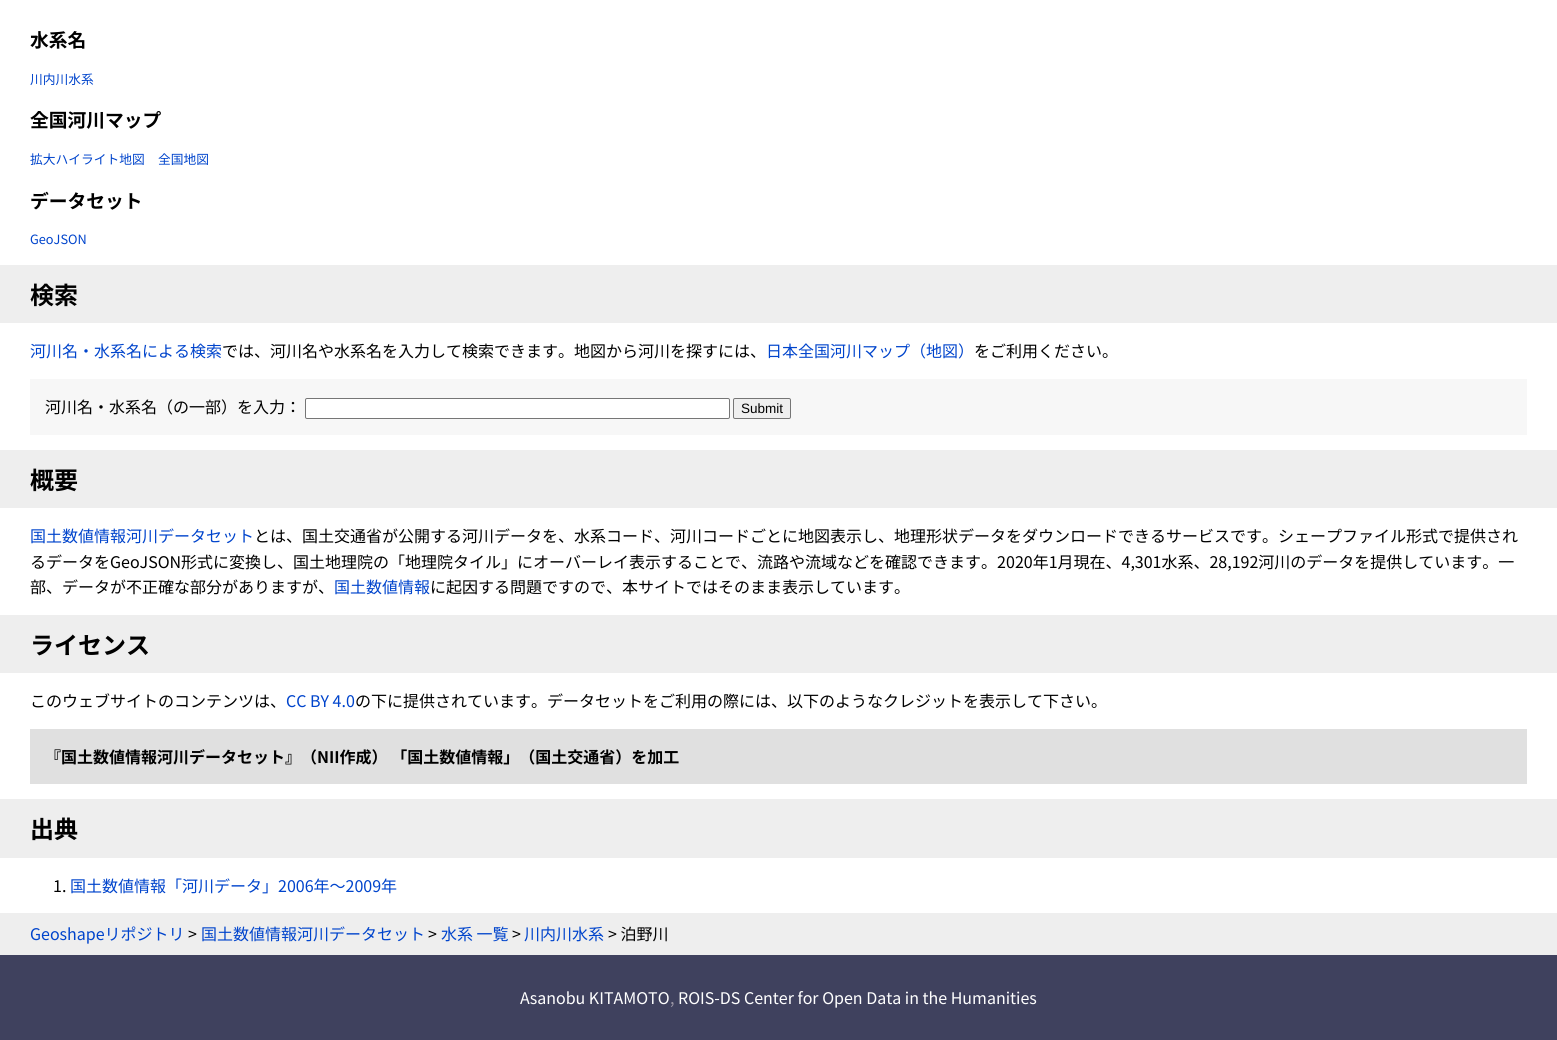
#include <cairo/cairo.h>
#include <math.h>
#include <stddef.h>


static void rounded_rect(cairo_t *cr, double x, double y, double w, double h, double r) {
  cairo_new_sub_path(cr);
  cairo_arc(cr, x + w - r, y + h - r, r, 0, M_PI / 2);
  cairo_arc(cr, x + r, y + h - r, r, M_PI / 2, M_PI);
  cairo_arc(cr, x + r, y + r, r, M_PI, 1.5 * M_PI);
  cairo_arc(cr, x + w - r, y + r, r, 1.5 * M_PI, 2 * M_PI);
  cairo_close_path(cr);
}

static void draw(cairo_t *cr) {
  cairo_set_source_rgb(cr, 1, 1, 1);
  cairo_paint(cr);
  cairo_set_source_rgb(cr, 238 / 255.0, 238 / 255.0, 238 / 255.0);
  cairo_rectangle(cr, 0, 265, 1557, 58);
  cairo_fill(cr);
  cairo_set_source_rgb(cr, 247 / 255.0, 247 / 255.0, 247 / 255.0);
  cairo_rectangle(cr, 30, 379, 1497, 56);
  cairo_fill(cr);
  cairo_set_source_rgb(cr, 1, 1, 1);
  rounded_rect(cr, 305.5, 398.5, 424, 20, 1.5);
  cairo_fill_preserve(cr);
  cairo_set_source_rgb(cr, 118 / 255.0, 118 / 255.0, 118 / 255.0);
  cairo_set_line_width(cr, 1);
  cairo_stroke(cr);
  cairo_set_source_rgb(cr, 239 / 255.0, 239 / 255.0, 239 / 255.0);
  rounded_rect(cr, 733.5, 398.5, 57, 20, 1.5);
  cairo_fill_preserve(cr);
  cairo_set_source_rgb(cr, 118 / 255.0, 118 / 255.0, 118 / 255.0);
  cairo_stroke(cr);
  cairo_set_source_rgb(cr, 238 / 255.0, 238 / 255.0, 238 / 255.0);
  cairo_rectangle(cr, 0, 450, 1557, 58);
  cairo_fill(cr);
  cairo_rectangle(cr, 0, 615, 1557, 58);
  cairo_fill(cr);
  cairo_set_source_rgb(cr, 224 / 255.0, 224 / 255.0, 224 / 255.0);
  cairo_rectangle(cr, 30, 729, 1497, 55);
  cairo_fill(cr);
  cairo_set_source_rgb(cr, 238 / 255.0, 238 / 255.0, 238 / 255.0);
  cairo_rectangle(cr, 0, 799, 1557, 59);
  cairo_fill(cr);
  cairo_rectangle(cr, 0, 913, 1557, 42);
  cairo_fill(cr);
  cairo_set_source_rgb(cr, 63 / 255.0, 65 / 255.0, 94 / 255.0);
  cairo_rectangle(cr, 0, 955, 1557, 85);
  cairo_fill(cr);
  cairo_select_font_face(cr, "Noto Sans JP", CAIRO_FONT_SLANT_NORMAL, CAIRO_FONT_WEIGHT_BOLD);
  cairo_set_font_size(cr, 18.75);
  cairo_set_source_rgb(cr, 0, 0, 0);
  cairo_move_to(cr, 30, 47);
  cairo_show_text(cr, "水系名");
  cairo_select_font_face(cr, "Noto Sans JP", CAIRO_FONT_SLANT_NORMAL, CAIRO_FONT_WEIGHT_NORMAL);
  cairo_set_font_size(cr, 12.75);
  cairo_set_source_rgb(cr, 0, 68 / 255.0, 204 / 255.0);
  cairo_move_to(cr, 30, 84);
  cairo_show_text(cr, "川内川水系");
  cairo_select_font_face(cr, "Noto Sans JP", CAIRO_FONT_SLANT_NORMAL, CAIRO_FONT_WEIGHT_BOLD);
  cairo_set_font_size(cr, 18.75);
  cairo_set_source_rgb(cr, 0, 0, 0);
  cairo_move_to(cr, 30, 127);
  cairo_show_text(cr, "全国河川マップ");
  cairo_select_font_face(cr, "Noto Sans JP", CAIRO_FONT_SLANT_NORMAL, CAIRO_FONT_WEIGHT_NORMAL);
  cairo_set_font_size(cr, 12.75);
  cairo_set_source_rgb(cr, 0, 68 / 255.0, 204 / 255.0);
  cairo_move_to(cr, 30, 164);
  cairo_show_text(cr, "拡大ハイライト地図");
  cairo_move_to(cr, 158, 164);
  cairo_show_text(cr, "全国地図");
  cairo_select_font_face(cr, "Noto Sans JP", CAIRO_FONT_SLANT_NORMAL, CAIRO_FONT_WEIGHT_BOLD);
  cairo_set_font_size(cr, 18.75);
  cairo_set_source_rgb(cr, 0, 0, 0);
  cairo_move_to(cr, 30, 208);
  cairo_show_text(cr, "データセット");
  cairo_select_font_face(cr, "Noto Sans JP", CAIRO_FONT_SLANT_NORMAL, CAIRO_FONT_WEIGHT_NORMAL);
  cairo_set_font_size(cr, 12.75);
  cairo_set_source_rgb(cr, 0, 68 / 255.0, 204 / 255.0);
  cairo_move_to(cr, 30, 244);
  cairo_show_text(cr, "GeoJSON");
  cairo_select_font_face(cr, "Noto Sans JP", CAIRO_FONT_SLANT_NORMAL, CAIRO_FONT_WEIGHT_BOLD);
  cairo_set_font_size(cr, 24);
  cairo_set_source_rgb(cr, 0, 0, 0);
  cairo_move_to(cr, 30, 304);
  cairo_show_text(cr, "検索");
  cairo_select_font_face(cr, "Noto Sans JP", CAIRO_FONT_SLANT_NORMAL, CAIRO_FONT_WEIGHT_NORMAL);
  cairo_set_font_size(cr, 16);
  cairo_set_source_rgb(cr, 0, 68 / 255.0, 204 / 255.0);
  cairo_move_to(cr, 30, 357);
  cairo_show_text(cr, "河川名・水系名による検索");
  cairo_set_source_rgb(cr, 0, 0, 0);
  cairo_move_to(cr, 222, 357);
  cairo_show_text(cr, "では、河川名や水系名を入力して検索できます。地図から河川を探すには、");
  cairo_set_source_rgb(cr, 0, 68 / 255.0, 204 / 255.0);
  cairo_move_to(cr, 766, 357);
  cairo_show_text(cr, "日本全国河川マップ（地図）");
  cairo_set_source_rgb(cr, 0, 0, 0);
  cairo_move_to(cr, 974, 357);
  cairo_show_text(cr, "をご利用ください。");
  cairo_move_to(cr, 45, 413);
  cairo_show_text(cr, "河川名・水系名（の一部）を入力：");
  cairo_select_font_face(cr, "Liberation Sans", CAIRO_FONT_SLANT_NORMAL, CAIRO_FONT_WEIGHT_NORMAL);
  cairo_set_font_size(cr, 13.5);
  cairo_move_to(cr, 741, 413);
  cairo_show_text(cr, "Submit");
  cairo_select_font_face(cr, "Noto Sans JP", CAIRO_FONT_SLANT_NORMAL, CAIRO_FONT_WEIGHT_BOLD);
  cairo_set_font_size(cr, 24);
  cairo_move_to(cr, 30, 489);
  cairo_show_text(cr, "概要");
  cairo_select_font_face(cr, "Noto Sans JP", CAIRO_FONT_SLANT_NORMAL, CAIRO_FONT_WEIGHT_NORMAL);
  cairo_set_font_size(cr, 16);
  cairo_set_source_rgb(cr, 0, 68 / 255.0, 204 / 255.0);
  cairo_move_to(cr, 30, 542);
  cairo_show_text(cr, "国土数値情報河川データセット");
  cairo_set_source_rgb(cr, 0, 0, 0);
  cairo_move_to(cr, 254, 542);
  cairo_show_text(cr, "とは、国土交通省が公開する河川データを、水系コード、河川コードごとに地図表示し、地理形状データをダウンロードできるサービスです。シェープファイル形式で提供され");
  cairo_move_to(cr, 30, 568);
  cairo_show_text(cr, "るデータをGeoJSON形式に変換し、国土地理院の「地理院タイル」にオーバーレイ表示することで、流路や流域などを確認できます。2020年1月現在、4,301水系、28,192河川のデータを提供しています。一");
  cairo_move_to(cr, 30, 593);
  cairo_show_text(cr, "部、データが不正確な部分がありますが、");
  cairo_set_source_rgb(cr, 0, 68 / 255.0, 204 / 255.0);
  cairo_move_to(cr, 334, 593);
  cairo_show_text(cr, "国土数値情報");
  cairo_set_source_rgb(cr, 0, 0, 0);
  cairo_move_to(cr, 430, 593);
  cairo_show_text(cr, "に起因する問題ですので、本サイトではそのまま表示しています。");
  cairo_select_font_face(cr, "Noto Sans JP", CAIRO_FONT_SLANT_NORMAL, CAIRO_FONT_WEIGHT_BOLD);
  cairo_set_font_size(cr, 24);
  cairo_move_to(cr, 30, 654);
  cairo_show_text(cr, "ライセンス");
  cairo_select_font_face(cr, "Noto Sans JP", CAIRO_FONT_SLANT_NORMAL, CAIRO_FONT_WEIGHT_NORMAL);
  cairo_set_font_size(cr, 16);
  cairo_move_to(cr, 30, 707);
  cairo_show_text(cr, "このウェブサイトのコンテンツは、");
  cairo_set_source_rgb(cr, 0, 68 / 255.0, 204 / 255.0);
  cairo_move_to(cr, 286, 707);
  cairo_show_text(cr, "CC BY 4.0");
  cairo_set_source_rgb(cr, 0, 0, 0);
  cairo_move_to(cr, 355, 707);
  cairo_show_text(cr, "の下に提供されています。データセットをご利用の際には、以下のようなクレジットを表示して下さい。");
  cairo_select_font_face(cr, "Noto Sans JP", CAIRO_FONT_SLANT_NORMAL, CAIRO_FONT_WEIGHT_BOLD);
  cairo_move_to(cr, 45, 763);
  cairo_show_text(cr, "『国土数値情報河川データセット』（NII作成） 「国土数値情報」（国土交通省）を加工");
  cairo_set_font_size(cr, 24);
  cairo_move_to(cr, 30, 838);
  cairo_show_text(cr, "出典");
  cairo_select_font_face(cr, "Noto Sans JP", CAIRO_FONT_SLANT_NORMAL, CAIRO_FONT_WEIGHT_NORMAL);
  cairo_set_font_size(cr, 16);
  cairo_move_to(cr, 53, 892);
  cairo_show_text(cr, "1.");
  cairo_set_source_rgb(cr, 0, 68 / 255.0, 204 / 255.0);
  cairo_move_to(cr, 70, 892);
  cairo_show_text(cr, "国土数値情報「河川データ」2006年〜2009年");
  cairo_move_to(cr, 30, 940);
  cairo_show_text(cr, "Geoshapeリポジトリ");
  cairo_set_source_rgb(cr, 0, 0, 0);
  cairo_move_to(cr, 188, 940);
  cairo_show_text(cr, ">");
  cairo_set_source_rgb(cr, 0, 68 / 255.0, 204 / 255.0);
  cairo_move_to(cr, 201, 940);
  cairo_show_text(cr, "国土数値情報河川データセット");
  cairo_set_source_rgb(cr, 0, 0, 0);
  cairo_move_to(cr, 428, 940);
  cairo_show_text(cr, ">");
  cairo_set_source_rgb(cr, 0, 68 / 255.0, 204 / 255.0);
  cairo_move_to(cr, 441, 940);
  cairo_show_text(cr, "水系 一覧");
  cairo_set_source_rgb(cr, 0, 0, 0);
  cairo_move_to(cr, 512, 940);
  cairo_show_text(cr, ">");
  cairo_set_source_rgb(cr, 0, 68 / 255.0, 204 / 255.0);
  cairo_move_to(cr, 524, 940);
  cairo_show_text(cr, "川内川水系");
  cairo_set_source_rgb(cr, 0, 0, 0);
  cairo_move_to(cr, 608, 940);
  cairo_show_text(cr, "> 泊野川");
  cairo_set_source_rgb(cr, 1, 1, 1);
  cairo_move_to(cr, 520, 1004);
  cairo_show_text(cr, "Asanobu KITAMOTO");
  cairo_set_source_rgb(cr, 154 / 255.0, 149 / 255.0, 164 / 255.0);
  cairo_move_to(cr, 670, 1004);
  cairo_show_text(cr, ",");
  cairo_set_source_rgb(cr, 1, 1, 1);
  cairo_move_to(cr, 678, 1004);
  cairo_show_text(cr, "ROIS-DS Center for Open Data in the Humanities");
}

int main(void) {
  cairo_surface_t *surface = cairo_image_surface_create(CAIRO_FORMAT_RGB24, 1557, 1040);
  cairo_t *cr = cairo_create(surface);
  cairo_font_options_t *options = cairo_font_options_create();
  cairo_font_options_set_hint_metrics(options, CAIRO_HINT_METRICS_OFF);
  cairo_font_options_set_hint_style(options, CAIRO_HINT_STYLE_NONE);
  cairo_set_font_options(cr, options);
  cairo_set_miter_limit(cr, 4);
  draw(cr);
  cairo_surface_write_to_png(surface, "out.png");
  cairo_font_options_destroy(options);
  cairo_destroy(cr);
  cairo_surface_destroy(surface);
  return 0;
}
